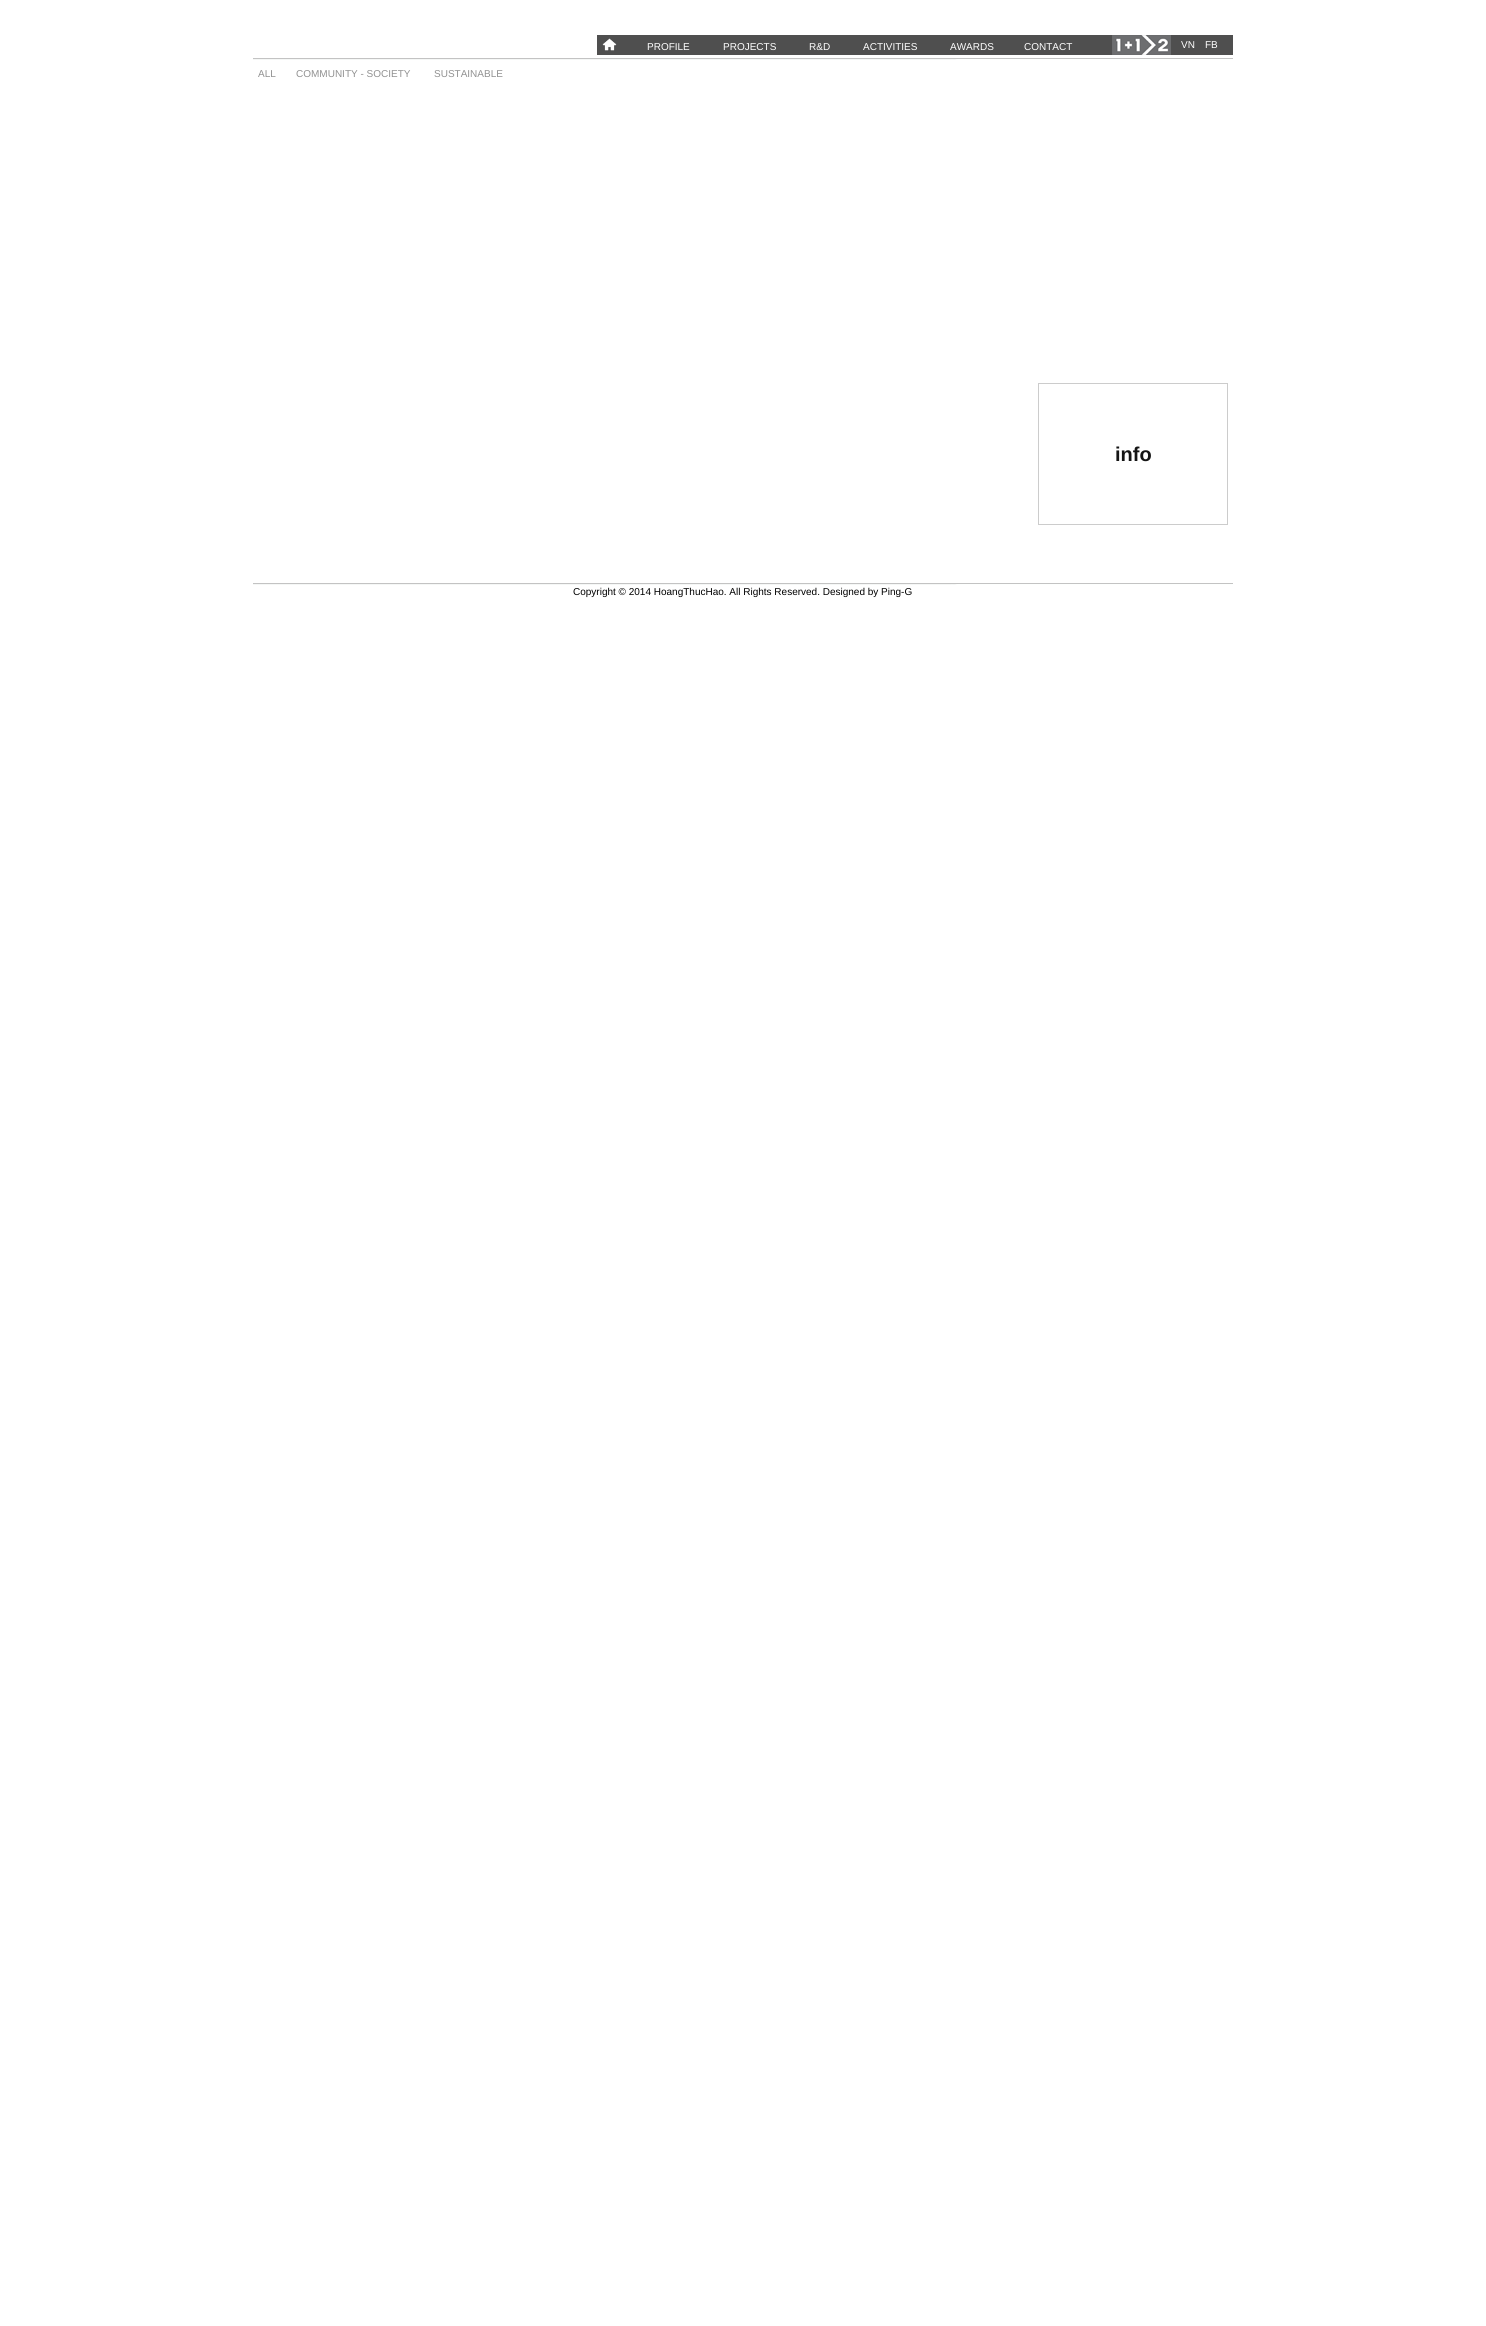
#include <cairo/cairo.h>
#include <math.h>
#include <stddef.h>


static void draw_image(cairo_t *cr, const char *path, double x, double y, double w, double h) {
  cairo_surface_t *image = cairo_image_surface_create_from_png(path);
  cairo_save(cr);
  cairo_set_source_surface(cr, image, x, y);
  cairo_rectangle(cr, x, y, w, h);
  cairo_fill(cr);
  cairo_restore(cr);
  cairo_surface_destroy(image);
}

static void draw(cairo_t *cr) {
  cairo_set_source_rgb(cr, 1, 1, 1);
  cairo_paint(cr);
  cairo_set_source_rgb(cr, 79 / 255.0, 79 / 255.0, 79 / 255.0);
  cairo_rectangle(cr, 597, 35, 636, 20);
  cairo_fill(cr);
  draw_image(cr, "images/1.png", 602, 38, 15, 13);
  draw_image(cr, "images/2.png", 1112, 35, 59, 20);
  draw_image(cr, "images/3.png", 253, 58, 980, 2);
  cairo_rectangle(cr, 1038.5, 383.5, 189, 141);
  cairo_set_source_rgb(cr, 204 / 255.0, 204 / 255.0, 204 / 255.0);
  cairo_set_line_width(cr, 1);
  cairo_stroke(cr);
  draw_image(cr, "images/3.png", 253, 583, 980, 2);
  cairo_select_font_face(cr, "Liberation Sans", CAIRO_FONT_SLANT_NORMAL, CAIRO_FONT_WEIGHT_NORMAL);
  cairo_set_font_size(cr, 10);
  cairo_set_source_rgb(cr, 1, 1, 1);
  cairo_move_to(cr, 647, 50);
  cairo_show_text(cr, "PROFILE");
  cairo_move_to(cr, 723, 50);
  cairo_show_text(cr, "PROJECTS");
  cairo_move_to(cr, 809, 50);
  cairo_show_text(cr, "R&D");
  cairo_move_to(cr, 863, 50);
  cairo_show_text(cr, "ACTIVITIES");
  cairo_move_to(cr, 950, 50);
  cairo_show_text(cr, "AWARDS");
  cairo_move_to(cr, 1024, 50);
  cairo_show_text(cr, "CONTACT");
  cairo_move_to(cr, 1181, 48);
  cairo_show_text(cr, "VN");
  cairo_move_to(cr, 1205, 48);
  cairo_show_text(cr, "FB");
  cairo_set_source_rgb(cr, 145 / 255.0, 145 / 255.0, 145 / 255.0);
  cairo_move_to(cr, 258, 77);
  cairo_show_text(cr, "ALL");
  cairo_move_to(cr, 296, 77);
  cairo_show_text(cr, "COMMUNITY - SOCIETY");
  cairo_move_to(cr, 434, 77);
  cairo_show_text(cr, "SUSTAINABLE");
  cairo_select_font_face(cr, "Liberation Sans", CAIRO_FONT_SLANT_NORMAL, CAIRO_FONT_WEIGHT_BOLD);
  cairo_set_font_size(cr, 20);
  cairo_set_source_rgb(cr, 21 / 255.0, 21 / 255.0, 21 / 255.0);
  cairo_move_to(cr, 1115, 461);
  cairo_show_text(cr, "info");
  cairo_select_font_face(cr, "Liberation Sans", CAIRO_FONT_SLANT_NORMAL, CAIRO_FONT_WEIGHT_NORMAL);
  cairo_set_font_size(cr, 10);
  cairo_set_source_rgb(cr, 0, 0, 0);
  cairo_move_to(cr, 573, 595);
  cairo_show_text(cr, "Copyright © 2014 HoangThucHao. All Rights Reserved. Designed by Ping-G");
}

int main(void) {
  cairo_surface_t *surface = cairo_image_surface_create(CAIRO_FORMAT_RGB24, 1486, 2326);
  cairo_t *cr = cairo_create(surface);
  cairo_font_options_t *options = cairo_font_options_create();
  cairo_font_options_set_hint_metrics(options, CAIRO_HINT_METRICS_OFF);
  cairo_font_options_set_hint_style(options, CAIRO_HINT_STYLE_NONE);
  cairo_set_font_options(cr, options);
  cairo_set_miter_limit(cr, 4);
  draw(cr);
  cairo_surface_write_to_png(surface, "out.png");
  cairo_font_options_destroy(options);
  cairo_destroy(cr);
  cairo_surface_destroy(surface);
  return 0;
}
